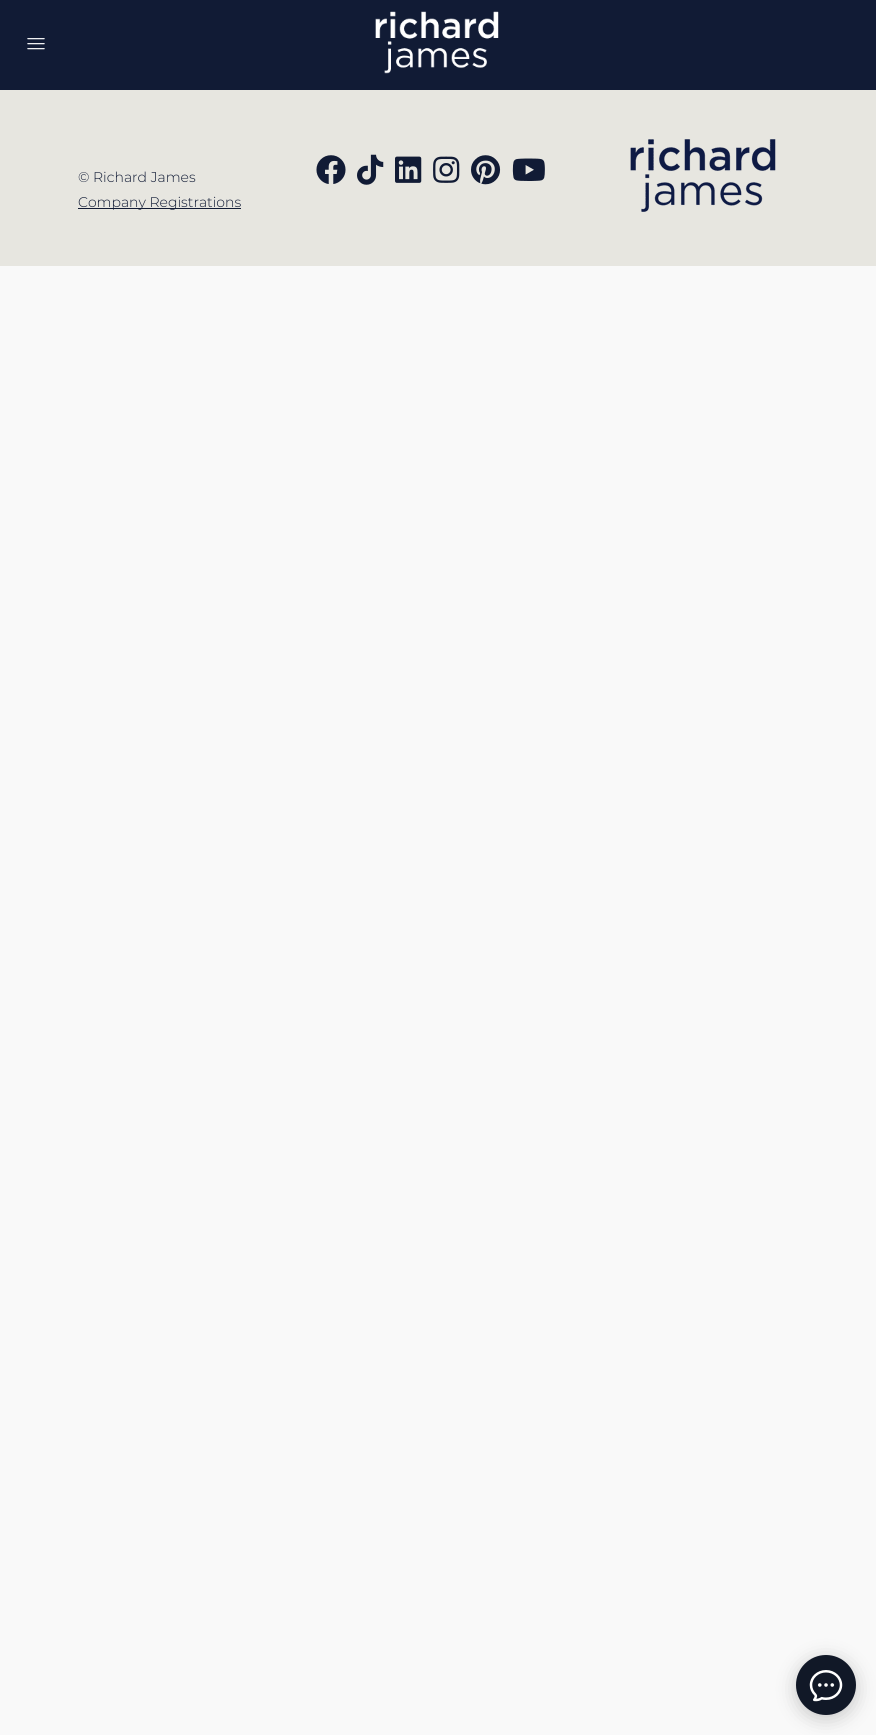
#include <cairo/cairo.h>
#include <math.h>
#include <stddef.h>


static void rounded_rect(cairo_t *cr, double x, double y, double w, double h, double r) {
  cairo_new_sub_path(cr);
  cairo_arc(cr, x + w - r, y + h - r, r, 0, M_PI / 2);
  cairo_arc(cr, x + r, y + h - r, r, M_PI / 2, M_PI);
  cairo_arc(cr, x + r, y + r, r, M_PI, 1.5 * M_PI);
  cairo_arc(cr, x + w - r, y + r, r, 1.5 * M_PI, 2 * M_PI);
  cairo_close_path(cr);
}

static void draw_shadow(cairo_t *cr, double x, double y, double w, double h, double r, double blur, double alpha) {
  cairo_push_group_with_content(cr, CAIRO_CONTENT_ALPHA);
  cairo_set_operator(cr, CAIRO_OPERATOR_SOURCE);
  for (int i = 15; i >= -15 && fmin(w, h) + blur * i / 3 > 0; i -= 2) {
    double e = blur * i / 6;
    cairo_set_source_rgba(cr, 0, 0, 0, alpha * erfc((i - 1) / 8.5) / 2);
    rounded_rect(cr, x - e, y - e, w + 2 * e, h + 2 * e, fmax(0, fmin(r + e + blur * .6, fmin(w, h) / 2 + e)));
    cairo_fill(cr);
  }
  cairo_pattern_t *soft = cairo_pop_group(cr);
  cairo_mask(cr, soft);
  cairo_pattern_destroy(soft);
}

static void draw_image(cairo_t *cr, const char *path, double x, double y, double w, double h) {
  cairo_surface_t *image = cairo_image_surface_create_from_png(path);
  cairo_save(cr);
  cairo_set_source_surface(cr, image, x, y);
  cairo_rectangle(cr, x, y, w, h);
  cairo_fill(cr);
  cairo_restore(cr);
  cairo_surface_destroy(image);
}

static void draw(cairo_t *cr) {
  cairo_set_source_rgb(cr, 249 / 255.0, 249 / 255.0, 249 / 255.0);
  cairo_paint(cr);
  cairo_set_source_rgb(cr, 17 / 255.0, 27 / 255.0, 53 / 255.0);
  cairo_rectangle(cr, 0, 0, 876, 90);
  cairo_fill(cr);
  draw_image(cr, "images/1.png", 27, 38, 18, 12);
  draw_image(cr, "images/2.png", 375, 11, 124, 63);
  cairo_set_source_rgb(cr, 231 / 255.0, 230 / 255.0, 224 / 255.0);
  cairo_rectangle(cr, 0, 90, 876, 176);
  cairo_fill(cr);
  cairo_set_source_rgb(cr, 17 / 255.0, 27 / 255.0, 53 / 255.0);
  cairo_rectangle(cr, 78, 208, 163, 1);
  cairo_fill(cr);
  draw_image(cr, "images/3.png", 316, 155, 30, 29);
  draw_image(cr, "images/4.png", 357, 154, 27, 31);
  draw_image(cr, "images/5.png", 395, 156, 27, 27);
  draw_image(cr, "images/6.png", 433, 156, 27, 27);
  draw_image(cr, "images/7.png", 471, 155, 30, 30);
  draw_image(cr, "images/8.png", 512, 158, 33, 23);
  draw_image(cr, "images/9.png", 630, 139, 146, 73);
  cairo_set_source_rgb(cr, 0, 0, 0);
  draw_shadow(cr, 796, 1659, 60, 60, 30, 9.5, 0.2);
  cairo_set_source_rgb(cr, 17 / 255.0, 24 / 255.0, 39 / 255.0);
  cairo_arc(cr, 826, 1685, 30, 0, 2 * M_PI);
  cairo_fill(cr);
  draw_image(cr, "images/10.png", 809, 1670, 34, 32);
  cairo_select_font_face(cr, "Montserrat Light", CAIRO_FONT_SLANT_NORMAL, CAIRO_FONT_WEIGHT_NORMAL);
  cairo_set_font_size(cr, 14);
  cairo_set_source_rgb(cr, 17 / 255.0, 27 / 255.0, 53 / 255.0);
  cairo_move_to(cr, 78, 182);
  cairo_show_text(cr, "© Richard James");
  cairo_move_to(cr, 78, 207);
  cairo_show_text(cr, "Company Registrations");
}

int main(void) {
  cairo_surface_t *surface = cairo_image_surface_create(CAIRO_FORMAT_RGB24, 876, 1735);
  cairo_t *cr = cairo_create(surface);
  cairo_font_options_t *options = cairo_font_options_create();
  cairo_font_options_set_hint_metrics(options, CAIRO_HINT_METRICS_OFF);
  cairo_font_options_set_hint_style(options, CAIRO_HINT_STYLE_NONE);
  cairo_set_font_options(cr, options);
  cairo_set_miter_limit(cr, 4);
  draw(cr);
  cairo_surface_write_to_png(surface, "out.png");
  cairo_font_options_destroy(options);
  cairo_destroy(cr);
  cairo_surface_destroy(surface);
  return 0;
}
